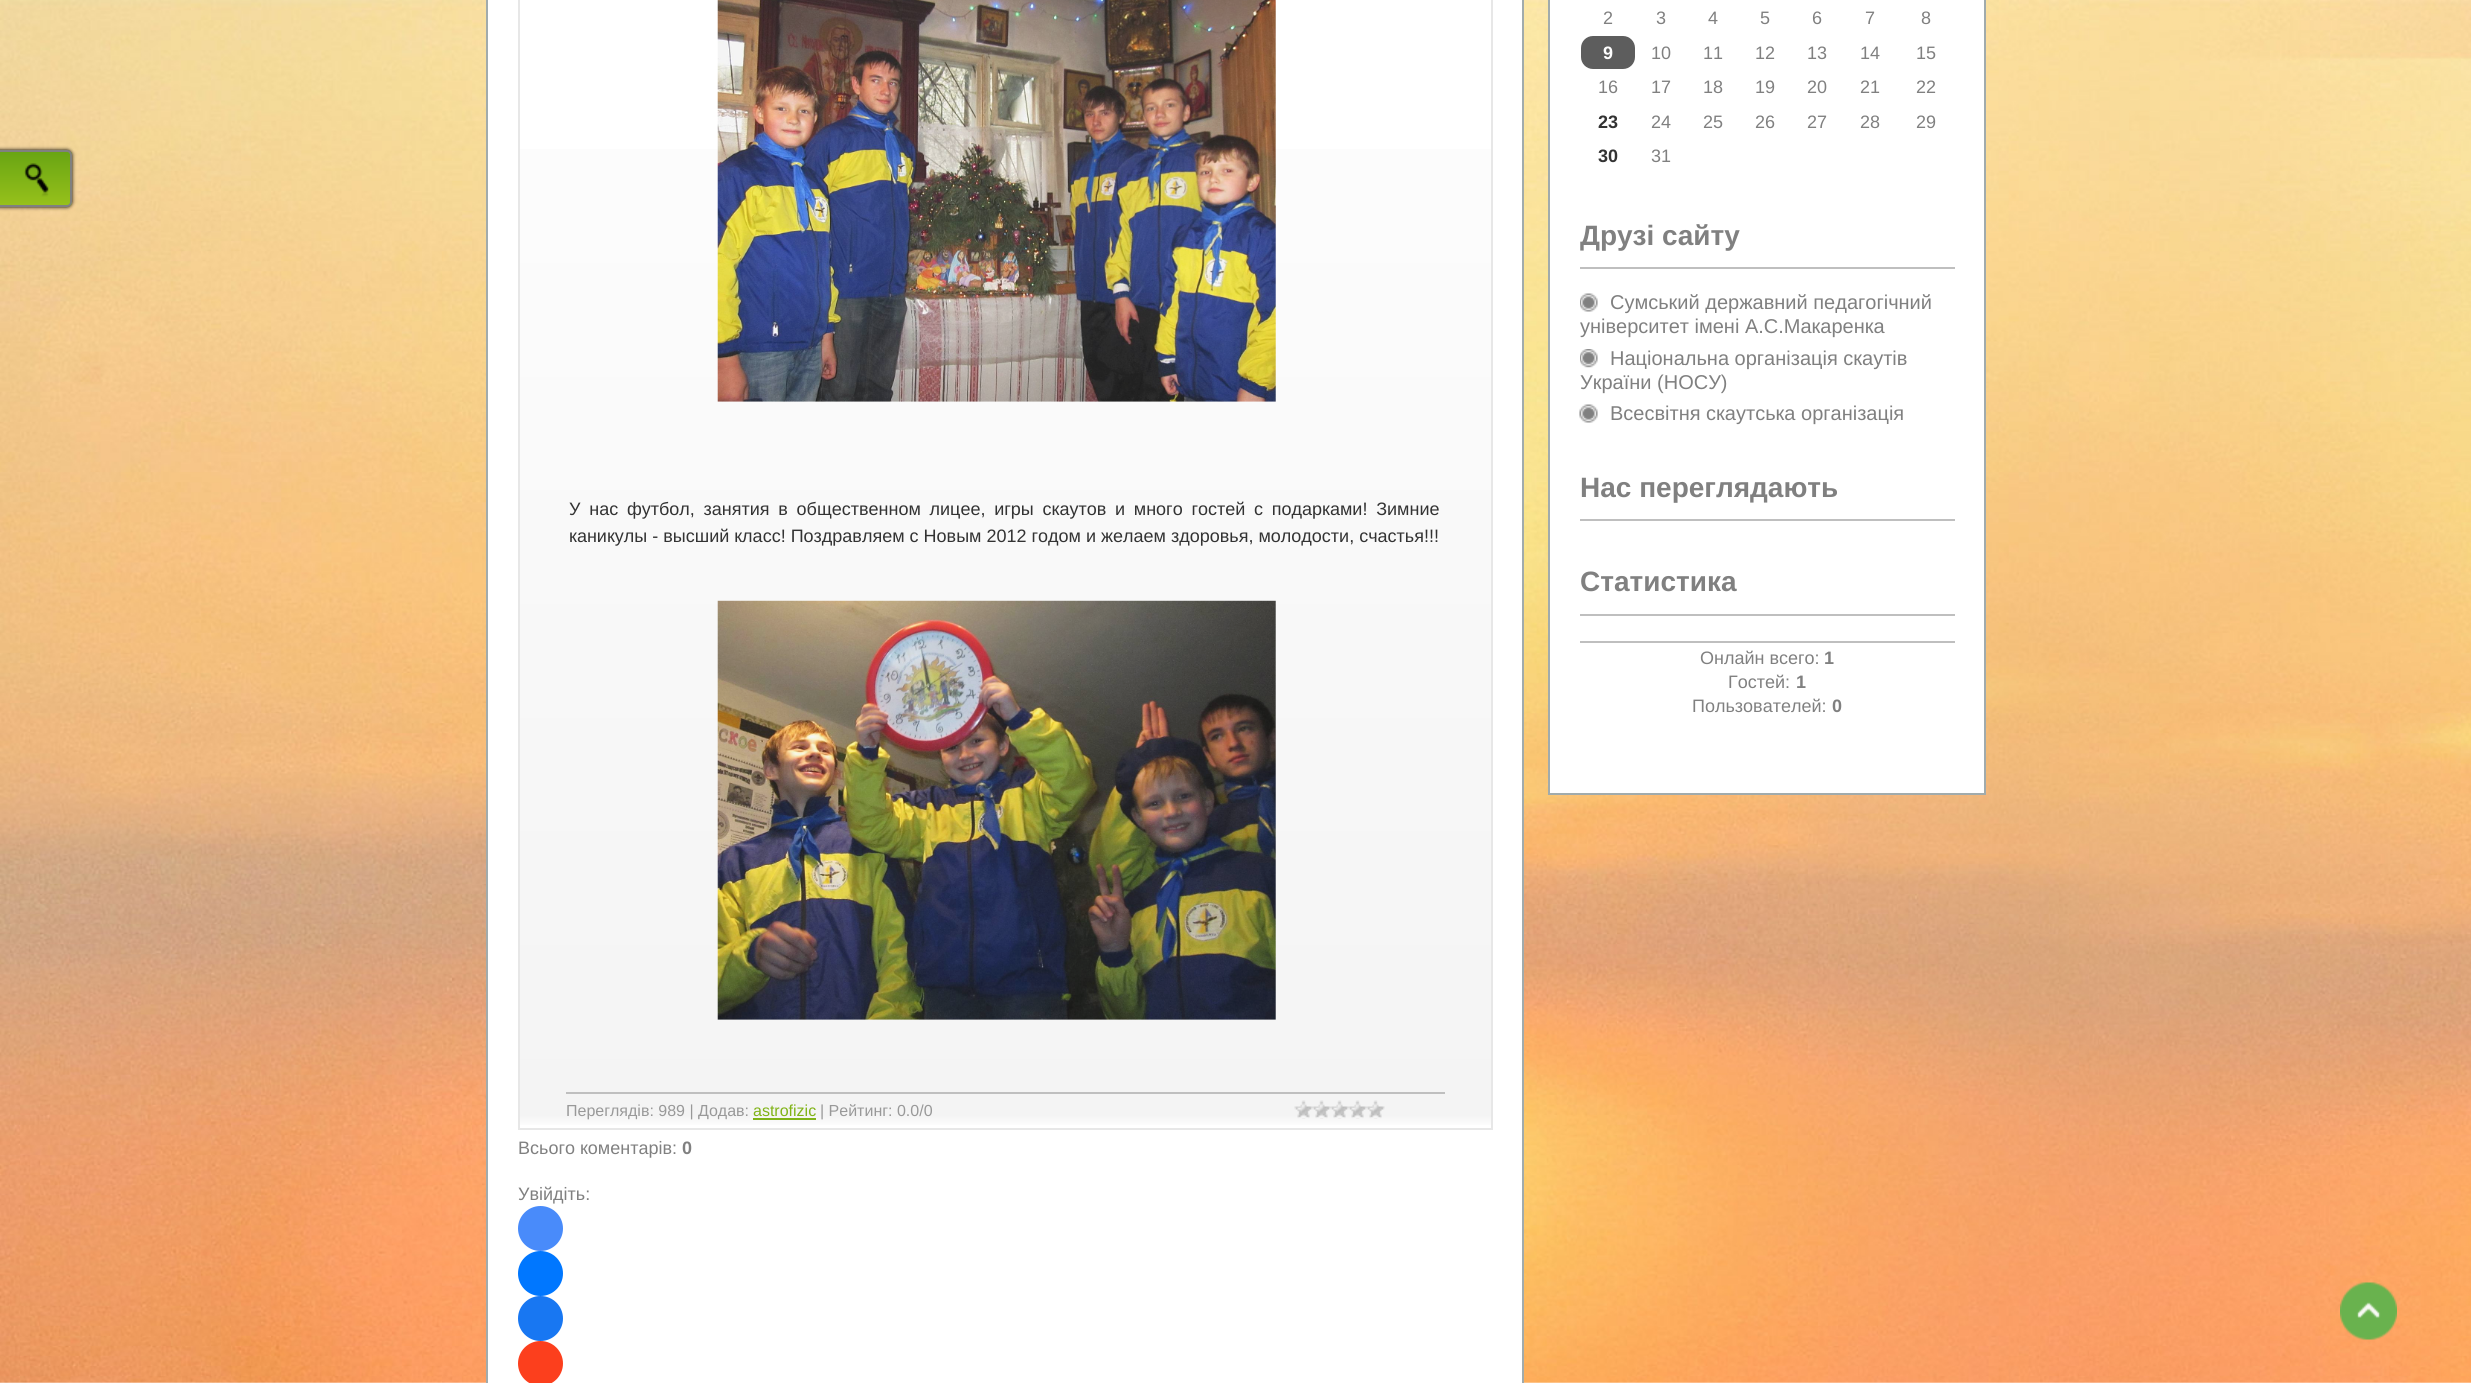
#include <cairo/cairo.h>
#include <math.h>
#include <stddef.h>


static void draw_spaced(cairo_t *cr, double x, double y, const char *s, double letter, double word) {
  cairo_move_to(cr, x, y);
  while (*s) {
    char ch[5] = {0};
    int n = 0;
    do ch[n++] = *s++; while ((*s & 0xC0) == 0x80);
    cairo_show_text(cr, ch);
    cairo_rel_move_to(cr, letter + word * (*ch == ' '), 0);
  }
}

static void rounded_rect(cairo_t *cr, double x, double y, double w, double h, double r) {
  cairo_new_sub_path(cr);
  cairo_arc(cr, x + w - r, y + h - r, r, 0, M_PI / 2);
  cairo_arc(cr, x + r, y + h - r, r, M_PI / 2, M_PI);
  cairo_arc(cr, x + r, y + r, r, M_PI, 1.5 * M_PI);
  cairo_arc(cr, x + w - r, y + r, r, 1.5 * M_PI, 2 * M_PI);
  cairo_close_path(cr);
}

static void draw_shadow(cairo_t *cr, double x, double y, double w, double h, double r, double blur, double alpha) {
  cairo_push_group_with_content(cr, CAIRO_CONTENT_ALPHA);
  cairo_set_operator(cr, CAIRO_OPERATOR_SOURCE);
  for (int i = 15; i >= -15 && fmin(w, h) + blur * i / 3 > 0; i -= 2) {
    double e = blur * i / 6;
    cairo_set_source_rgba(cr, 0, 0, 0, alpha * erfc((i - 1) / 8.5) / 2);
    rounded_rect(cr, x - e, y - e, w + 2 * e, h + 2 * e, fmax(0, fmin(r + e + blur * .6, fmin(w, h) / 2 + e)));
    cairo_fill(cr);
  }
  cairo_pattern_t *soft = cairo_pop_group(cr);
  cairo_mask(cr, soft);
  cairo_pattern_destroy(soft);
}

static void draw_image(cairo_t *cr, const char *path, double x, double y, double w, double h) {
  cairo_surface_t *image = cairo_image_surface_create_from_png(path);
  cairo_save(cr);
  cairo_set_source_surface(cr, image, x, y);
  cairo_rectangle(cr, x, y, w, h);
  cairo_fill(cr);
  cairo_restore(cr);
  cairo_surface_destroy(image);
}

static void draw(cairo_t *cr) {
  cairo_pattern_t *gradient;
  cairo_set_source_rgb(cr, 1, 1, 1);
  cairo_paint(cr);
  draw_image(cr, "images/1.png", 0, 0, 2471, 1383);
  cairo_set_source_rgb(cr, 0, 0, 0);
  draw_shadow(cr, -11, 150, 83, 57, 5, 2, 1);
  cairo_save(cr);
  rounded_rect(cr, -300, 150, 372, 57, 5);
  cairo_clip(cr);
  gradient = cairo_pattern_create_linear(-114, 206, -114, 152);
  cairo_pattern_add_color_stop_rgba(gradient, 0, 151 / 255.0, 193 / 255.0, 27 / 255.0, 1);
  cairo_pattern_add_color_stop_rgba(gradient, 1, 105 / 255.0, 165 / 255.0, 19 / 255.0, 1);
  cairo_set_source(cr, gradient);
  cairo_pattern_destroy(gradient);
  cairo_rectangle(cr, 0, 152, 72, 54);
  cairo_fill(cr);
  cairo_restore(cr);
  rounded_rect(cr, -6, 151, 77, 55, 4);
  cairo_set_source_rgb(cr, 128 / 255.0, 128 / 255.0, 128 / 255.0);
  cairo_stroke(cr);
  draw_image(cr, "images/2.png", 24, 163, 25, 34);
  cairo_set_source_rgb(cr, 1, 1, 1);
  cairo_rectangle(cr, 1549, -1, 436, 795);
  cairo_fill_preserve(cr);
  cairo_set_source_rgb(cr, 161 / 255.0, 171 / 255.0, 172 / 255.0);
  cairo_stroke(cr);
  cairo_set_source_rgb(cr, 93 / 255.0, 93 / 255.0, 93 / 255.0);
  rounded_rect(cr, 1581, 36, 54, 33, 12);
  cairo_fill(cr);
  cairo_set_source_rgb(cr, 191 / 255.0, 191 / 255.0, 191 / 255.0);
  cairo_rectangle(cr, 1580, 267, 375, 2);
  cairo_fill(cr);
  draw_image(cr, "images/3.png", 1580, 293, 18, 19);
  draw_image(cr, "images/4.png", 1580, 349, 18, 19);
  draw_image(cr, "images/5.png", 1579, 404, 19, 19);
  cairo_rectangle(cr, 1580, 519, 375, 2);
  cairo_fill(cr);
  cairo_rectangle(cr, 1580, 614, 375, 2);
  cairo_fill(cr);
  cairo_rectangle(cr, 1580, 641, 375, 2);
  cairo_fill(cr);
  cairo_set_source_rgb(cr, 1, 1, 1);
  cairo_rectangle(cr, 487, -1, 1036, 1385);
  cairo_fill_preserve(cr);
  cairo_set_source_rgb(cr, 161 / 255.0, 171 / 255.0, 172 / 255.0);
  cairo_stroke(cr);
  gradient = cairo_pattern_create_linear(1005, 1128, 1005, -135);
  cairo_pattern_add_color_stop_rgba(gradient, 0, 1, 1, 1, 1);
  cairo_pattern_add_color_stop_rgba(gradient, 0.01, 244 / 255.0, 244 / 255.0, 244 / 255.0, 1);
  cairo_pattern_add_color_stop_rgba(gradient, 1, 1, 1, 1, 1);
  cairo_set_source(cr, gradient);
  cairo_pattern_destroy(gradient);
  cairo_rectangle(cr, 520, 149, 971, 976);
  cairo_fill(cr);
  cairo_rectangle(cr, 519, -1, 973, 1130);
  cairo_set_source_rgb(cr, 231 / 255.0, 231 / 255.0, 231 / 255.0);
  cairo_stroke(cr);
  draw_image(cr, "images/6.png", 717, 0, 559, 402);
  draw_image(cr, "images/7.png", 717, 600, 559, 420);
  cairo_set_source_rgb(cr, 191 / 255.0, 191 / 255.0, 191 / 255.0);
  cairo_rectangle(cr, 566, 1092, 879, 2);
  cairo_fill(cr);
  cairo_set_source_rgb(cr, 128 / 255.0, 179 / 255.0, 23 / 255.0);
  cairo_rectangle(cr, 753, 1118, 63, 2);
  cairo_fill(cr);
  draw_image(cr, "images/8.png", 1294, 1100, 91, 19);
  cairo_set_source_rgb(cr, 73 / 255.0, 139 / 255.0, 250 / 255.0);
  cairo_arc(cr, 540.5, 1228.5, 22.5, 0, 2 * M_PI);
  cairo_fill(cr);
  cairo_set_source_rgb(cr, 0, 119 / 255.0, 1);
  cairo_arc(cr, 540.5, 1273.5, 22.5, 0, 2 * M_PI);
  cairo_fill(cr);
  cairo_set_source_rgb(cr, 24 / 255.0, 119 / 255.0, 242 / 255.0);
  cairo_arc(cr, 540.5, 1318.5, 22.5, 0, 2 * M_PI);
  cairo_fill(cr);
  cairo_set_source_rgb(cr, 252 / 255.0, 63 / 255.0, 29 / 255.0);
  cairo_arc(cr, 540.5, 1363.5, 22.5, 0, 2 * M_PI);
  cairo_fill(cr);
  draw_image(cr, "images/9.png", 2340, 1282, 57, 58);
  cairo_select_font_face(cr, "Liberation Sans", CAIRO_FONT_SLANT_NORMAL, CAIRO_FONT_WEIGHT_NORMAL);
  cairo_set_font_size(cr, 18);
  cairo_set_source_rgb(cr, 128 / 255.0, 128 / 255.0, 128 / 255.0);
  cairo_move_to(cr, 1603, 24);
  cairo_show_text(cr, "2");
  cairo_move_to(cr, 1656, 24);
  cairo_show_text(cr, "3");
  cairo_move_to(cr, 1708, 24);
  cairo_show_text(cr, "4");
  cairo_move_to(cr, 1760, 24);
  cairo_show_text(cr, "5");
  cairo_move_to(cr, 1812, 24);
  cairo_show_text(cr, "6");
  cairo_move_to(cr, 1865, 24);
  cairo_show_text(cr, "7");
  cairo_move_to(cr, 1921, 24);
  cairo_show_text(cr, "8");
  cairo_select_font_face(cr, "Liberation Sans", CAIRO_FONT_SLANT_NORMAL, CAIRO_FONT_WEIGHT_BOLD);
  cairo_set_source_rgb(cr, 1, 1, 1);
  cairo_move_to(cr, 1603, 59);
  cairo_show_text(cr, "9");
  cairo_select_font_face(cr, "Liberation Sans", CAIRO_FONT_SLANT_NORMAL, CAIRO_FONT_WEIGHT_NORMAL);
  cairo_set_source_rgb(cr, 128 / 255.0, 128 / 255.0, 128 / 255.0);
  cairo_move_to(cr, 1651, 59);
  cairo_show_text(cr, "10");
  cairo_move_to(cr, 1703, 59);
  cairo_show_text(cr, "11");
  cairo_move_to(cr, 1755, 59);
  cairo_show_text(cr, "12");
  cairo_move_to(cr, 1807, 59);
  cairo_show_text(cr, "13");
  cairo_move_to(cr, 1860, 59);
  cairo_show_text(cr, "14");
  cairo_move_to(cr, 1916, 59);
  cairo_show_text(cr, "15");
  cairo_move_to(cr, 1598, 93);
  cairo_show_text(cr, "16");
  cairo_move_to(cr, 1651, 93);
  cairo_show_text(cr, "17");
  cairo_move_to(cr, 1703, 93);
  cairo_show_text(cr, "18");
  cairo_move_to(cr, 1755, 93);
  cairo_show_text(cr, "19");
  cairo_move_to(cr, 1807, 93);
  cairo_show_text(cr, "20");
  cairo_move_to(cr, 1860, 93);
  cairo_show_text(cr, "21");
  cairo_move_to(cr, 1916, 93);
  cairo_show_text(cr, "22");
  cairo_select_font_face(cr, "Liberation Sans", CAIRO_FONT_SLANT_NORMAL, CAIRO_FONT_WEIGHT_BOLD);
  cairo_set_source_rgb(cr, 51 / 255.0, 51 / 255.0, 51 / 255.0);
  cairo_move_to(cr, 1598, 128);
  cairo_show_text(cr, "23");
  cairo_select_font_face(cr, "Liberation Sans", CAIRO_FONT_SLANT_NORMAL, CAIRO_FONT_WEIGHT_NORMAL);
  cairo_set_source_rgb(cr, 128 / 255.0, 128 / 255.0, 128 / 255.0);
  cairo_move_to(cr, 1651, 128);
  cairo_show_text(cr, "24");
  cairo_move_to(cr, 1703, 128);
  cairo_show_text(cr, "25");
  cairo_move_to(cr, 1755, 128);
  cairo_show_text(cr, "26");
  cairo_move_to(cr, 1807, 128);
  cairo_show_text(cr, "27");
  cairo_move_to(cr, 1860, 128);
  cairo_show_text(cr, "28");
  cairo_move_to(cr, 1916, 128);
  cairo_show_text(cr, "29");
  cairo_select_font_face(cr, "Liberation Sans", CAIRO_FONT_SLANT_NORMAL, CAIRO_FONT_WEIGHT_BOLD);
  cairo_set_source_rgb(cr, 51 / 255.0, 51 / 255.0, 51 / 255.0);
  cairo_move_to(cr, 1598, 162);
  cairo_show_text(cr, "30");
  cairo_select_font_face(cr, "Liberation Sans", CAIRO_FONT_SLANT_NORMAL, CAIRO_FONT_WEIGHT_NORMAL);
  cairo_set_source_rgb(cr, 128 / 255.0, 128 / 255.0, 128 / 255.0);
  cairo_move_to(cr, 1651, 162);
  cairo_show_text(cr, "31");
  cairo_select_font_face(cr, "Liberation Sans", CAIRO_FONT_SLANT_NORMAL, CAIRO_FONT_WEIGHT_BOLD);
  cairo_set_font_size(cr, 28);
  cairo_move_to(cr, 1580, 245);
  cairo_show_text(cr, "Друзі сайту");
  cairo_select_font_face(cr, "Liberation Sans", CAIRO_FONT_SLANT_NORMAL, CAIRO_FONT_WEIGHT_NORMAL);
  cairo_set_font_size(cr, 20);
  cairo_move_to(cr, 1610, 309);
  cairo_show_text(cr, "Сумський державний педагогічний");
  cairo_move_to(cr, 1580, 333);
  cairo_show_text(cr, "університет імені А.С.Макаренка");
  cairo_move_to(cr, 1610, 365);
  cairo_show_text(cr, "Національна організація скаутів");
  cairo_move_to(cr, 1580, 389);
  cairo_show_text(cr, "України (НОСУ)");
  cairo_move_to(cr, 1610, 420);
  cairo_show_text(cr, "Всесвітня скаутська організація");
  cairo_select_font_face(cr, "Liberation Sans", CAIRO_FONT_SLANT_NORMAL, CAIRO_FONT_WEIGHT_BOLD);
  cairo_set_font_size(cr, 28);
  cairo_move_to(cr, 1580, 497);
  cairo_show_text(cr, "Нас переглядають");
  cairo_move_to(cr, 1580, 591);
  cairo_show_text(cr, "Статистика");
  cairo_select_font_face(cr, "Liberation Sans", CAIRO_FONT_SLANT_NORMAL, CAIRO_FONT_WEIGHT_NORMAL);
  cairo_set_font_size(cr, 18);
  cairo_move_to(cr, 1700, 664);
  cairo_show_text(cr, "Онлайн всего:");
  cairo_select_font_face(cr, "Liberation Sans", CAIRO_FONT_SLANT_NORMAL, CAIRO_FONT_WEIGHT_BOLD);
  cairo_move_to(cr, 1824, 664);
  cairo_show_text(cr, "1");
  cairo_select_font_face(cr, "Liberation Sans", CAIRO_FONT_SLANT_NORMAL, CAIRO_FONT_WEIGHT_NORMAL);
  cairo_move_to(cr, 1728, 688);
  cairo_show_text(cr, "Гостей:");
  cairo_select_font_face(cr, "Liberation Sans", CAIRO_FONT_SLANT_NORMAL, CAIRO_FONT_WEIGHT_BOLD);
  cairo_move_to(cr, 1796, 688);
  cairo_show_text(cr, "1");
  cairo_select_font_face(cr, "Liberation Sans", CAIRO_FONT_SLANT_NORMAL, CAIRO_FONT_WEIGHT_NORMAL);
  cairo_move_to(cr, 1692, 712);
  cairo_show_text(cr, "Пользователей:");
  cairo_select_font_face(cr, "Liberation Sans", CAIRO_FONT_SLANT_NORMAL, CAIRO_FONT_WEIGHT_BOLD);
  cairo_move_to(cr, 1832, 712);
  cairo_show_text(cr, "0");
  cairo_select_font_face(cr, "Liberation Sans", CAIRO_FONT_SLANT_NORMAL, CAIRO_FONT_WEIGHT_NORMAL);
  cairo_set_source_rgb(cr, 51 / 255.0, 51 / 255.0, 51 / 255.0);
  draw_spaced(cr, 569, 515, "У нас футбол, занятия в общественном лицее, игры скаутов и много гостей с подарками! Зимние", 0, 3.75);
  cairo_move_to(cr, 569, 542);
  cairo_show_text(cr, "каникулы - высший класс! Поздравляем с Новым 2012 годом и желаем здоровья, молодости, счастья!!!");
  cairo_set_font_size(cr, 16);
  cairo_set_source_rgb(cr, 153 / 255.0, 153 / 255.0, 153 / 255.0);
  cairo_move_to(cr, 566, 1116);
  cairo_show_text(cr, "Переглядів: 989 | Додав:");
  cairo_set_source_rgb(cr, 128 / 255.0, 179 / 255.0, 23 / 255.0);
  cairo_move_to(cr, 753, 1116);
  cairo_show_text(cr, "astrofizic");
  cairo_set_source_rgb(cr, 153 / 255.0, 153 / 255.0, 153 / 255.0);
  cairo_move_to(cr, 820, 1116);
  cairo_show_text(cr, "| Рейтинг: 0.0/0");
  cairo_set_font_size(cr, 18);
  cairo_set_source_rgb(cr, 128 / 255.0, 128 / 255.0, 128 / 255.0);
  cairo_move_to(cr, 518, 1154);
  cairo_show_text(cr, "Всього коментарів:");
  cairo_select_font_face(cr, "Liberation Sans", CAIRO_FONT_SLANT_NORMAL, CAIRO_FONT_WEIGHT_BOLD);
  cairo_move_to(cr, 682, 1154);
  cairo_show_text(cr, "0");
  cairo_select_font_face(cr, "Liberation Sans", CAIRO_FONT_SLANT_NORMAL, CAIRO_FONT_WEIGHT_NORMAL);
  cairo_move_to(cr, 518, 1200);
  cairo_show_text(cr, "Увійдіть:");
}

int main(void) {
  cairo_surface_t *surface = cairo_image_surface_create(CAIRO_FORMAT_RGB24, 2471, 1383);
  cairo_t *cr = cairo_create(surface);
  cairo_font_options_t *options = cairo_font_options_create();
  cairo_font_options_set_hint_metrics(options, CAIRO_HINT_METRICS_OFF);
  cairo_font_options_set_hint_style(options, CAIRO_HINT_STYLE_NONE);
  cairo_set_font_options(cr, options);
  cairo_set_miter_limit(cr, 4);
  draw(cr);
  cairo_surface_write_to_png(surface, "out.png");
  cairo_font_options_destroy(options);
  cairo_destroy(cr);
  cairo_surface_destroy(surface);
  return 0;
}
